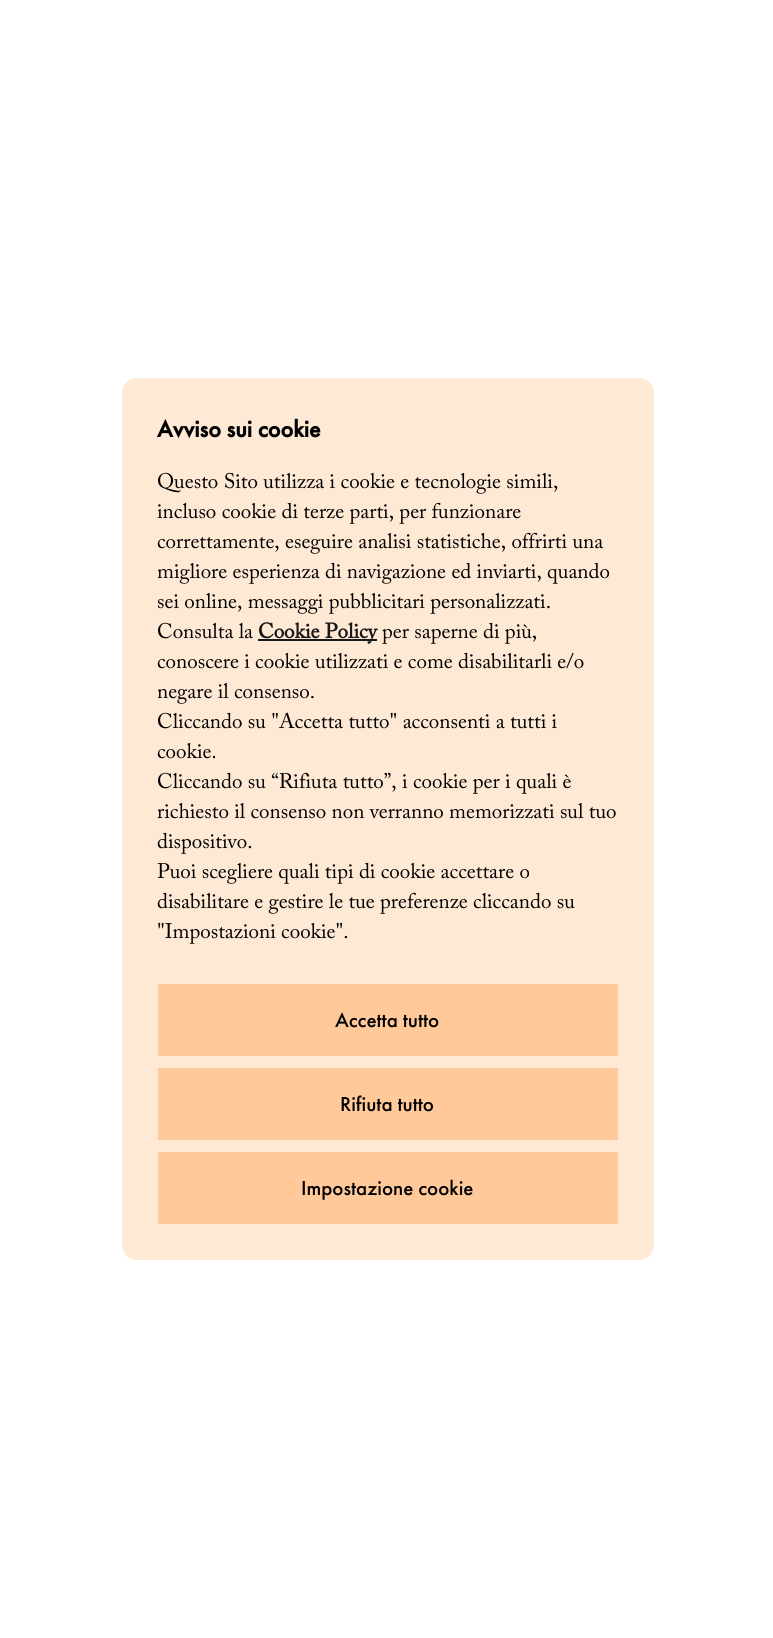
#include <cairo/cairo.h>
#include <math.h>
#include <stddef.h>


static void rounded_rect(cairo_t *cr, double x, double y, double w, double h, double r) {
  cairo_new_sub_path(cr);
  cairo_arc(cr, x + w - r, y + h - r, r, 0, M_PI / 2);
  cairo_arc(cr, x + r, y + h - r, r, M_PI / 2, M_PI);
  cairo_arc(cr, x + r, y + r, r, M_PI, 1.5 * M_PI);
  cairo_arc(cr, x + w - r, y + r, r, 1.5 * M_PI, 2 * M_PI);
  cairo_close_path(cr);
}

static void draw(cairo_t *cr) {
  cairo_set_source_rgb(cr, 1, 1, 1);
  cairo_paint(cr);
  cairo_set_source_rgb(cr, 254 / 255.0, 233 / 255.0, 213 / 255.0);
  rounded_rect(cr, 122, 378, 532, 882, 15);
  cairo_fill(cr);
  cairo_set_source_rgb(cr, 24 / 255.0, 24 / 255.0, 24 / 255.0);
  cairo_rectangle(cr, 258, 639, 119, 2);
  cairo_fill(cr);
  cairo_set_source_rgb(cr, 1, 201 / 255.0, 153 / 255.0);
  cairo_rectangle(cr, 158, 984, 460, 72);
  cairo_fill(cr);
  cairo_rectangle(cr, 158, 1068, 460, 72);
  cairo_fill(cr);
  cairo_rectangle(cr, 158, 1152, 460, 72);
  cairo_fill(cr);
  cairo_select_font_face(cr, "Futura PT", CAIRO_FONT_SLANT_NORMAL, CAIRO_FONT_WEIGHT_BOLD);
  cairo_set_font_size(cr, 24);
  cairo_set_source_rgb(cr, 0, 0, 0);
  cairo_move_to(cr, 157, 437);
  cairo_show_text(cr, "Avviso sui cookie");
  cairo_select_font_face(cr, "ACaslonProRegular", CAIRO_FONT_SLANT_NORMAL, CAIRO_FONT_WEIGHT_NORMAL);
  cairo_set_font_size(cr, 21);
  cairo_move_to(cr, 157, 488);
  cairo_show_text(cr, "Questo Sito utilizza i cookie e tecnologie simili,");
  cairo_move_to(cr, 157, 518);
  cairo_show_text(cr, "incluso cookie di terze parti, per funzionare");
  cairo_move_to(cr, 157, 548);
  cairo_show_text(cr, "correttamente, eseguire analisi statistiche, offrirti una");
  cairo_move_to(cr, 157, 578);
  cairo_show_text(cr, "migliore esperienza di navigazione ed inviarti, quando");
  cairo_move_to(cr, 157, 608);
  cairo_show_text(cr, "sei online, messaggi pubblicitari personalizzati.");
  cairo_move_to(cr, 157, 638);
  cairo_show_text(cr, "Consulta la");
  cairo_select_font_face(cr, "ACaslonProRegular", CAIRO_FONT_SLANT_NORMAL, CAIRO_FONT_WEIGHT_BOLD);
  cairo_set_source_rgb(cr, 24 / 255.0, 24 / 255.0, 24 / 255.0);
  cairo_move_to(cr, 258, 638);
  cairo_show_text(cr, "Cookie Policy");
  cairo_select_font_face(cr, "ACaslonProRegular", CAIRO_FONT_SLANT_NORMAL, CAIRO_FONT_WEIGHT_NORMAL);
  cairo_set_source_rgb(cr, 0, 0, 0);
  cairo_move_to(cr, 382, 638);
  cairo_show_text(cr, "per saperne di più,");
  cairo_move_to(cr, 157, 668);
  cairo_show_text(cr, "conoscere i cookie utilizzati e come disabilitarli e/o");
  cairo_move_to(cr, 157, 698);
  cairo_show_text(cr, "negare il consenso.");
  cairo_move_to(cr, 157, 728);
  cairo_show_text(cr, "Cliccando su \"Accetta tutto\" acconsenti a tutti i");
  cairo_move_to(cr, 157, 758);
  cairo_show_text(cr, "cookie.");
  cairo_move_to(cr, 157, 788);
  cairo_show_text(cr, "Cliccando su “Rifiuta tutto”, i cookie per i quali è");
  cairo_move_to(cr, 157, 818);
  cairo_show_text(cr, "richiesto il consenso non verranno memorizzati sul tuo");
  cairo_move_to(cr, 157, 848);
  cairo_show_text(cr, "dispositivo.");
  cairo_move_to(cr, 157, 878);
  cairo_show_text(cr, "Puoi scegliere quali tipi di cookie accettare o");
  cairo_move_to(cr, 157, 908);
  cairo_show_text(cr, "disabilitare e gestire le tue preferenze cliccando su");
  cairo_move_to(cr, 157, 938);
  cairo_show_text(cr, "\"Impostazioni cookie\".");
  cairo_select_font_face(cr, "Futura PT", CAIRO_FONT_SLANT_NORMAL, CAIRO_FONT_WEIGHT_NORMAL);
  cairo_move_to(cr, 335, 1027);
  cairo_show_text(cr, "Accetta tutto");
  cairo_move_to(cr, 340, 1111);
  cairo_show_text(cr, "Rifiuta tutto");
  cairo_move_to(cr, 301, 1195);
  cairo_show_text(cr, "Impostazione cookie");
}

int main(void) {
  cairo_surface_t *surface = cairo_image_surface_create(CAIRO_FORMAT_RGB24, 773, 1638);
  cairo_t *cr = cairo_create(surface);
  cairo_font_options_t *options = cairo_font_options_create();
  cairo_font_options_set_hint_metrics(options, CAIRO_HINT_METRICS_OFF);
  cairo_font_options_set_hint_style(options, CAIRO_HINT_STYLE_NONE);
  cairo_set_font_options(cr, options);
  cairo_set_miter_limit(cr, 4);
  draw(cr);
  cairo_surface_write_to_png(surface, "out.png");
  cairo_font_options_destroy(options);
  cairo_destroy(cr);
  cairo_surface_destroy(surface);
  return 0;
}
